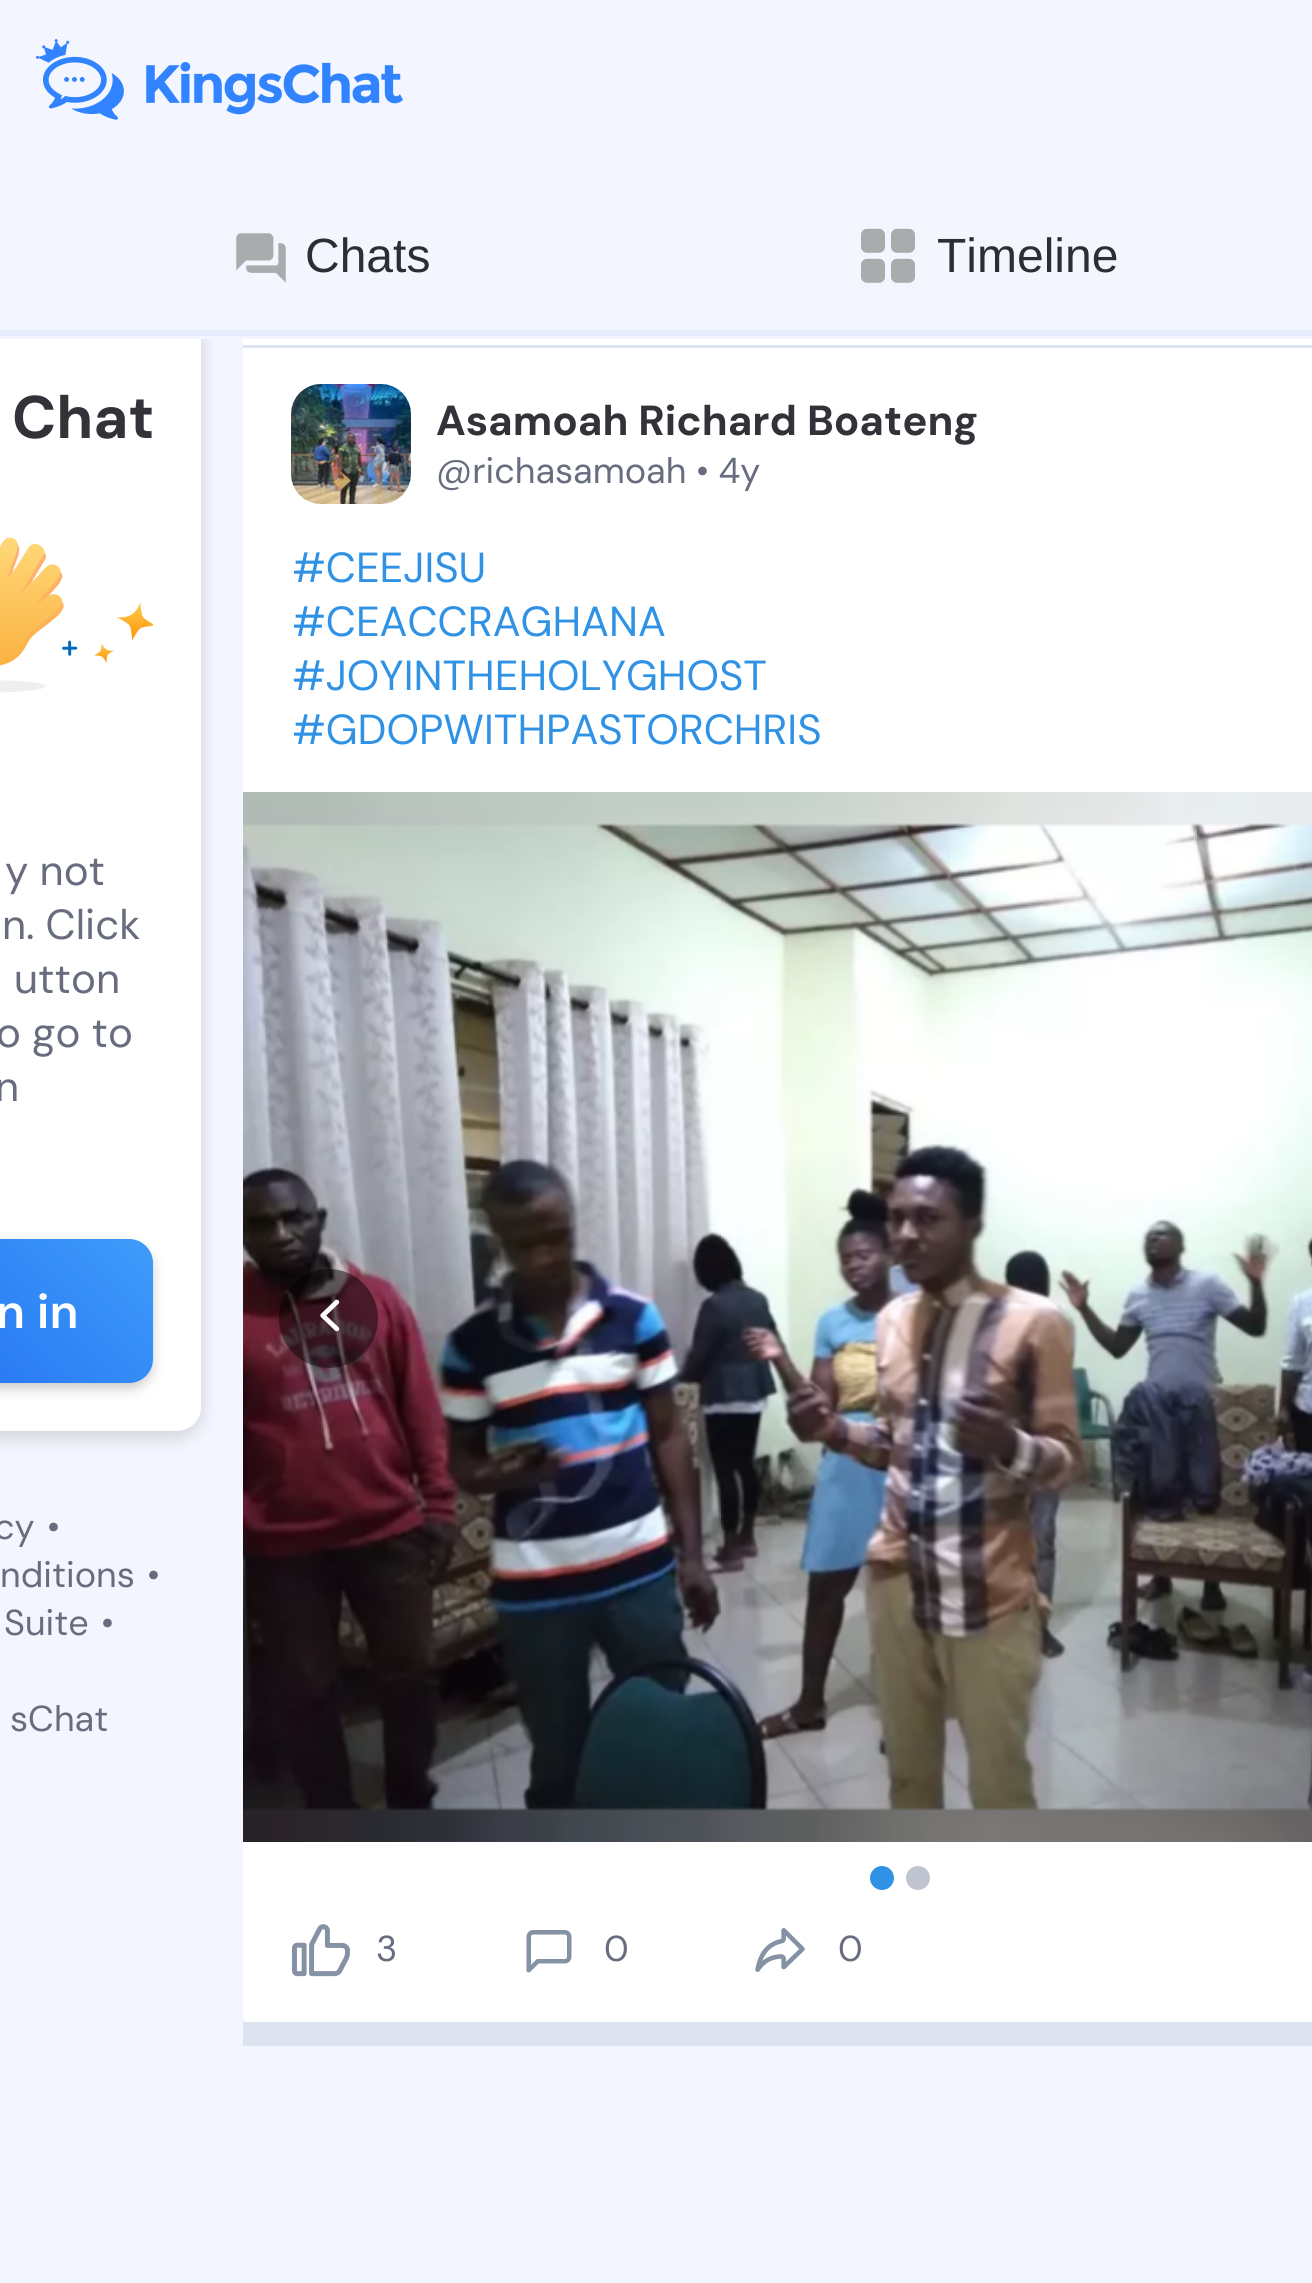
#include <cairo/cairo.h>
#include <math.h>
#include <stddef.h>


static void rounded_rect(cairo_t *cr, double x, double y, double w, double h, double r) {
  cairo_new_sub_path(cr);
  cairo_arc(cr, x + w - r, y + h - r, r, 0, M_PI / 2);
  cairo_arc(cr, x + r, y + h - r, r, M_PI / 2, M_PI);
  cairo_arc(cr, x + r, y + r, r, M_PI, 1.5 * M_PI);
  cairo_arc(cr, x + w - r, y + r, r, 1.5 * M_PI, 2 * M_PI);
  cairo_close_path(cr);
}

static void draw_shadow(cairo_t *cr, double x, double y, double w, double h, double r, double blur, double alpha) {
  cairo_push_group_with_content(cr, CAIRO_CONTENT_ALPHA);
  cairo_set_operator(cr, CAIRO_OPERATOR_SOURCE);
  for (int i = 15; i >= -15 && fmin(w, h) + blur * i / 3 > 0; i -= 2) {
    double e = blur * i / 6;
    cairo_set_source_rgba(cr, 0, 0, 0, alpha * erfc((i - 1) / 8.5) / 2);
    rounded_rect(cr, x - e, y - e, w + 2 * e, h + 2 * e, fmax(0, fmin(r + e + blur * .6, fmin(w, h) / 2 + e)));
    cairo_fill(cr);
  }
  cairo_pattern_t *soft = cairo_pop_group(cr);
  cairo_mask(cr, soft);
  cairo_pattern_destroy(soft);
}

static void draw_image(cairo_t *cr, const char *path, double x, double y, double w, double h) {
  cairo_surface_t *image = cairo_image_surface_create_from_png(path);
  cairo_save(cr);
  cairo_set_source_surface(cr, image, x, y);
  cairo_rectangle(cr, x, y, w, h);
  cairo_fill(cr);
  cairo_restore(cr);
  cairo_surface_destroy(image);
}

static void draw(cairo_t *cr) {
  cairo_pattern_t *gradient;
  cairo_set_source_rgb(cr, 243 / 255.0, 246 / 255.0, 254 / 255.0);
  cairo_paint(cr);
  cairo_set_source_rgb(cr, 0, 0, 0);
  draw_shadow(cr, -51, 258, 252, 1179, 24, 9, 0.15);
  cairo_set_source_rgb(cr, 1, 1, 1);
  rounded_rect(cr, -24, 252, 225, 1179, 24);
  cairo_fill(cr);
  rounded_rect(cr, 243, 180, 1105, 1866, 36);
  cairo_fill(cr);
  cairo_set_source_rgb(cr, 243 / 255.0, 246 / 255.0, 254 / 255.0);
  cairo_rectangle(cr, 0, 180, 1312, 159);
  cairo_fill(cr);
  draw_image(cr, "images/1.png", 36, 39, 367, 81);
  cairo_set_source_rgb(cr, 230 / 255.0, 236 / 255.0, 253 / 255.0);
  cairo_rectangle(cr, 0, 330, 1312, 6);
  cairo_fill(cr);
  draw_image(cr, "images/2.png", 236, 233, 50, 50);
  draw_image(cr, "images/3.png", 861, 228, 54, 55);
  draw_image(cr, "images/4.png", 0, 537, 153, 156);
  cairo_set_source_rgb(cr, 0, 0, 0);
  draw_shadow(cr, -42, 1245, 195, 144, 24, 6, 0.2);
  gradient = cairo_pattern_create_linear(-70, 1460, 227, 1163);
  cairo_pattern_add_color_stop_rgba(gradient, 0, 32 / 255.0, 107 / 255.0, 239 / 255.0, 1);
  cairo_pattern_add_color_stop_rgba(gradient, 1, 73 / 255.0, 172 / 255.0, 1, 1);
  cairo_set_source(cr, gradient);
  cairo_pattern_destroy(gradient);
  rounded_rect(cr, -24, 1239, 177, 144, 24);
  cairo_fill(cr);
  cairo_set_source_rgb(cr, 221 / 255.0, 227 / 255.0, 240 / 255.0);
  cairo_rectangle(cr, 243, 345, 1069, 3);
  cairo_fill(cr);
  cairo_rectangle(cr, 243, 2022, 1069, 24);
  cairo_fill(cr);
  draw_image(cr, "images/5.png", 291, 384, 120, 120);
  draw_image(cr, "images/6.png", 243, 792, 1069, 1050);
  draw_image(cr, "images/7.png", 243, 823, 1069, 988);
  cairo_save(cr);
  cairo_set_fill_rule(cr, CAIRO_FILL_RULE_EVEN_ODD);
  cairo_new_path(cr);
  cairo_move_to(cr, 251, 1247);
  cairo_line_to(cr, 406, 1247);
  cairo_line_to(cr, 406, 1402);
  cairo_line_to(cr, 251, 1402);
  cairo_close_path(cr);
  cairo_move_to(cr, 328.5, 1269);
  cairo_curve_to(cr, 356, 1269, 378, 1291, 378, 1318.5);
  cairo_curve_to(cr, 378, 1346, 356, 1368, 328.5, 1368);
  cairo_curve_to(cr, 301, 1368, 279, 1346, 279, 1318.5);
  cairo_curve_to(cr, 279, 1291, 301, 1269, 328.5, 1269);
  cairo_close_path(cr);
  cairo_clip(cr);
  cairo_set_source_rgb(cr, 0, 0, 0);
  draw_shadow(cr, 279, 1275, 99, 99, 49.5, 9, 0.15);
  cairo_restore(cr);
  cairo_set_source_rgba(cr, 0, 0, 0, 0.5);
  cairo_arc(cr, 328.5, 1318.5, 49.5, 0, 2 * M_PI);
  cairo_fill(cr);
  draw_image(cr, "images/8.png", 320, 1299, 20, 33);
  cairo_set_source_rgb(cr, 47 / 255.0, 146 / 255.0, 229 / 255.0);
  cairo_arc(cr, 882, 1878, 12, 0, 2 * M_PI);
  cairo_fill(cr);
  cairo_set_source_rgb(cr, 191 / 255.0, 196 / 255.0, 208 / 255.0);
  cairo_arc(cr, 918, 1878, 12, 0, 2 * M_PI);
  cairo_fill(cr);
  draw_image(cr, "images/9.png", 292, 1924, 58, 53);
  draw_image(cr, "images/10.png", 526, 1930, 46, 43);
  draw_image(cr, "images/11.png", 755, 1928, 50, 44);
  cairo_select_font_face(cr, "Liberation Sans", CAIRO_FONT_SLANT_NORMAL, CAIRO_FONT_WEIGHT_NORMAL);
  cairo_set_font_size(cr, 48);
  cairo_set_source_rgb(cr, 41 / 255.0, 47 / 255.0, 51 / 255.0);
  cairo_move_to(cr, 305, 272);
  cairo_show_text(cr, "Chats");
  cairo_move_to(cr, 937, 272);
  cairo_show_text(cr, "Timeline");
  cairo_select_font_face(cr, "DM Sans", CAIRO_FONT_SLANT_NORMAL, CAIRO_FONT_WEIGHT_BOLD);
  cairo_set_font_size(cr, 60);
  cairo_set_source_rgb(cr, 50 / 255.0, 51 / 255.0, 56 / 255.0);
  cairo_move_to(cr, 12, 438);
  cairo_show_text(cr, "Chat");
  cairo_select_font_face(cr, "DM Sans", CAIRO_FONT_SLANT_NORMAL, CAIRO_FONT_WEIGHT_NORMAL);
  cairo_set_font_size(cr, 42);
  cairo_set_source_rgb(cr, 103 / 255.0, 109 / 255.0, 126 / 255.0);
  cairo_move_to(cr, 5, 885);
  cairo_show_text(cr, "y not");
  cairo_move_to(cr, 2, 939);
  cairo_show_text(cr, "n. Click");
  cairo_move_to(cr, 14, 993);
  cairo_show_text(cr, "utton");
  cairo_move_to(cr, -4, 1047);
  cairo_show_text(cr, "o go to");
  cairo_move_to(cr, -5, 1101);
  cairo_show_text(cr, "n");
  cairo_select_font_face(cr, "DM Sans SemiBold", CAIRO_FONT_SLANT_NORMAL, CAIRO_FONT_WEIGHT_NORMAL);
  cairo_set_font_size(cr, 48);
  cairo_set_source_rgb(cr, 1, 1, 1);
  cairo_move_to(cr, -4, 1328);
  cairo_show_text(cr, "n in");
  cairo_select_font_face(cr, "DM Sans", CAIRO_FONT_SLANT_NORMAL, CAIRO_FONT_WEIGHT_NORMAL);
  cairo_set_font_size(cr, 36);
  cairo_set_source_rgb(cr, 103 / 255.0, 109 / 255.0, 126 / 255.0);
  cairo_move_to(cr, -6, 1539);
  cairo_show_text(cr, "cy");
  cairo_move_to(cr, 47, 1539);
  cairo_show_text(cr, "•");
  cairo_move_to(cr, 0, 1587);
  cairo_show_text(cr, "nditions");
  cairo_move_to(cr, 147, 1587);
  cairo_show_text(cr, "•");
  cairo_move_to(cr, 4, 1635);
  cairo_show_text(cr, "Suite");
  cairo_move_to(cr, 101, 1635);
  cairo_show_text(cr, "•");
  cairo_move_to(cr, 10, 1731);
  cairo_show_text(cr, "sChat");
  cairo_select_font_face(cr, "DM Sans", CAIRO_FONT_SLANT_NORMAL, CAIRO_FONT_WEIGHT_BOLD);
  cairo_set_font_size(cr, 42);
  cairo_set_source_rgb(cr, 50 / 255.0, 51 / 255.0, 56 / 255.0);
  cairo_move_to(cr, 436, 435);
  cairo_show_text(cr, "Asamoah Richard Boateng");
  cairo_select_font_face(cr, "DM Sans", CAIRO_FONT_SLANT_NORMAL, CAIRO_FONT_WEIGHT_NORMAL);
  cairo_set_font_size(cr, 36);
  cairo_set_source_rgb(cr, 103 / 255.0, 109 / 255.0, 126 / 255.0);
  cairo_move_to(cr, 436, 483);
  cairo_show_text(cr, "@richasamoah • 4y");
  cairo_set_font_size(cr, 42);
  cairo_set_source_rgb(cr, 47 / 255.0, 146 / 255.0, 229 / 255.0);
  cairo_move_to(cr, 292, 582);
  cairo_show_text(cr, "#CEEJISU");
  cairo_move_to(cr, 292, 636);
  cairo_show_text(cr, "#CEACCRAGHANA");
  cairo_move_to(cr, 292, 690);
  cairo_show_text(cr, "#JOYINTHEHOLYGHOST");
  cairo_move_to(cr, 292, 744);
  cairo_show_text(cr, "#GDOPWITHPASTORCHRIS");
  cairo_set_font_size(cr, 36);
  cairo_set_source_rgb(cr, 103 / 255.0, 109 / 255.0, 126 / 255.0);
  cairo_move_to(cr, 376, 1961);
  cairo_show_text(cr, "3");
  cairo_move_to(cr, 604, 1961);
  cairo_show_text(cr, "0");
  cairo_move_to(cr, 838, 1961);
  cairo_show_text(cr, "0");
}

int main(void) {
  cairo_surface_t *surface = cairo_image_surface_create(CAIRO_FORMAT_RGB24, 1312, 2283);
  cairo_t *cr = cairo_create(surface);
  cairo_font_options_t *options = cairo_font_options_create();
  cairo_font_options_set_hint_metrics(options, CAIRO_HINT_METRICS_OFF);
  cairo_font_options_set_hint_style(options, CAIRO_HINT_STYLE_NONE);
  cairo_set_font_options(cr, options);
  cairo_set_miter_limit(cr, 4);
  draw(cr);
  cairo_surface_write_to_png(surface, "out.png");
  cairo_font_options_destroy(options);
  cairo_destroy(cr);
  cairo_surface_destroy(surface);
  return 0;
}
